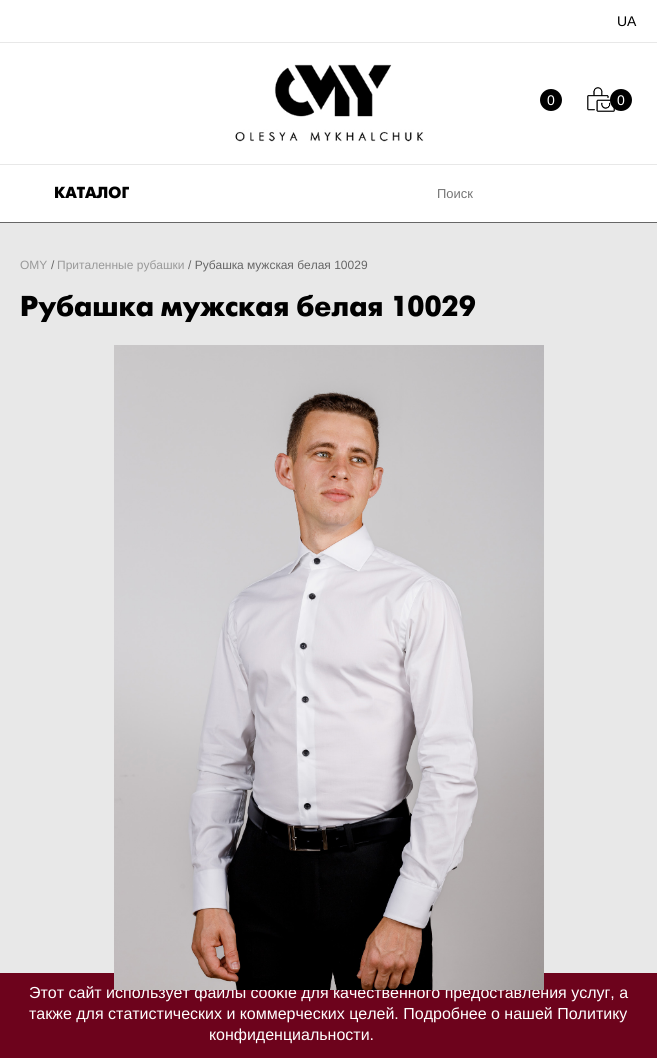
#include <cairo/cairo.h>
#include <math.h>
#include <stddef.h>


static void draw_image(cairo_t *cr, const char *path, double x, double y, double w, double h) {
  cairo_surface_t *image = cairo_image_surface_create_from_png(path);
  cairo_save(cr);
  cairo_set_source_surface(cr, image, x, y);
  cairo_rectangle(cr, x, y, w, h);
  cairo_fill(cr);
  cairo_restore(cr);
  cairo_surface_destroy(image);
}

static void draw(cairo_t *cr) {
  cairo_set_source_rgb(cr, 1, 1, 1);
  cairo_paint(cr);
  cairo_set_source_rgb(cr, 232 / 255.0, 232 / 255.0, 232 / 255.0);
  cairo_rectangle(cr, 0, 42, 657, 1);
  cairo_fill(cr);
  draw_image(cr, "images/1.png", 235, 64, 189, 78);
  cairo_set_source_rgb(cr, 0, 0, 0);
  cairo_arc(cr, 551, 100, 11, 0, 2 * M_PI);
  cairo_fill(cr);
  draw_image(cr, "images/2.png", 587, 87, 28, 25);
  cairo_arc(cr, 621, 100, 11, 0, 2 * M_PI);
  cairo_fill(cr);
  cairo_set_source_rgb(cr, 232 / 255.0, 232 / 255.0, 232 / 255.0);
  cairo_rectangle(cr, 0, 164, 657, 1);
  cairo_fill(cr);
  cairo_set_source_rgb(cr, 102 / 255.0, 102 / 255.0, 102 / 255.0);
  cairo_rectangle(cr, 0, 222, 657, 1);
  cairo_fill(cr);
  cairo_set_source_rgb(cr, 232 / 255.0, 232 / 255.0, 232 / 255.0);
  cairo_rectangle(cr, 0, 223, 657, 750);
  cairo_fill(cr);
  cairo_set_source_rgb(cr, 109 / 255.0, 3 / 255.0, 28 / 255.0);
  cairo_rectangle(cr, 0, 973, 657, 85);
  cairo_fill(cr);
  cairo_select_font_face(cr, "Liberation Sans", CAIRO_FONT_SLANT_NORMAL, CAIRO_FONT_WEIGHT_NORMAL);
  cairo_set_font_size(cr, 14);
  cairo_set_source_rgb(cr, 0, 0, 0);
  cairo_move_to(cr, 617, 26);
  cairo_show_text(cr, "UA");
  cairo_set_source_rgb(cr, 1, 1, 1);
  cairo_move_to(cr, 547, 105);
  cairo_show_text(cr, "0");
  cairo_move_to(cr, 617, 105);
  cairo_show_text(cr, "0");
  cairo_select_font_face(cr, "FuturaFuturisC", CAIRO_FONT_SLANT_NORMAL, CAIRO_FONT_WEIGHT_BOLD);
  cairo_set_font_size(cr, 16);
  cairo_set_source_rgb(cr, 0, 0, 0);
  cairo_move_to(cr, 54, 198);
  cairo_show_text(cr, "КАТАЛОГ");
  cairo_select_font_face(cr, "Liberation Sans", CAIRO_FONT_SLANT_NORMAL, CAIRO_FONT_WEIGHT_NORMAL);
  cairo_set_font_size(cr, 13);
  cairo_set_source_rgb(cr, 117 / 255.0, 117 / 255.0, 117 / 255.0);
  cairo_move_to(cr, 437, 198);
  cairo_show_text(cr, "Поиск");
  cairo_set_font_size(cr, 12);
  cairo_set_source_rgb(cr, 153 / 255.0, 153 / 255.0, 153 / 255.0);
  cairo_move_to(cr, 20, 269);
  cairo_show_text(cr, "OMY");
  cairo_set_source_rgb(cr, 102 / 255.0, 102 / 255.0, 102 / 255.0);
  cairo_move_to(cr, 51, 269);
  cairo_show_text(cr, "/");
  cairo_set_source_rgb(cr, 153 / 255.0, 153 / 255.0, 153 / 255.0);
  cairo_move_to(cr, 57, 269);
  cairo_show_text(cr, "Приталенные рубашки");
  cairo_set_source_rgb(cr, 102 / 255.0, 102 / 255.0, 102 / 255.0);
  cairo_move_to(cr, 188, 269);
  cairo_show_text(cr, "/ Рубашка мужская белая 10029");
  cairo_select_font_face(cr, "FuturaFuturisC", CAIRO_FONT_SLANT_NORMAL, CAIRO_FONT_WEIGHT_BOLD);
  cairo_set_font_size(cr, 28.75);
  cairo_set_source_rgb(cr, 0, 0, 0);
  cairo_move_to(cr, 20, 316);
  cairo_show_text(cr, "Рубашка мужская белая 10029");
  cairo_select_font_face(cr, "Liberation Sans", CAIRO_FONT_SLANT_NORMAL, CAIRO_FONT_WEIGHT_NORMAL);
  cairo_set_font_size(cr, 16);
  cairo_set_source_rgb(cr, 1, 1, 1);
  cairo_move_to(cr, 29, 998);
  cairo_show_text(cr, "Этот сайт использует файлы cookie для качественного предоставления услуг, а");
  draw_image(cr, "images/3.png", 114, 345, 430, 645);
  cairo_move_to(cr, 29, 1019);
  cairo_show_text(cr, "также для статистических и коммерческих целей. Подробнее о нашей Политику");
  cairo_move_to(cr, 209, 1040);
  cairo_show_text(cr, "конфиденциальности.");
}

int main(void) {
  cairo_surface_t *surface = cairo_image_surface_create(CAIRO_FORMAT_RGB24, 657, 1058);
  cairo_t *cr = cairo_create(surface);
  cairo_font_options_t *options = cairo_font_options_create();
  cairo_font_options_set_hint_metrics(options, CAIRO_HINT_METRICS_OFF);
  cairo_font_options_set_hint_style(options, CAIRO_HINT_STYLE_NONE);
  cairo_set_font_options(cr, options);
  cairo_set_miter_limit(cr, 4);
  draw(cr);
  cairo_surface_write_to_png(surface, "out.png");
  cairo_font_options_destroy(options);
  cairo_destroy(cr);
  cairo_surface_destroy(surface);
  return 0;
}
